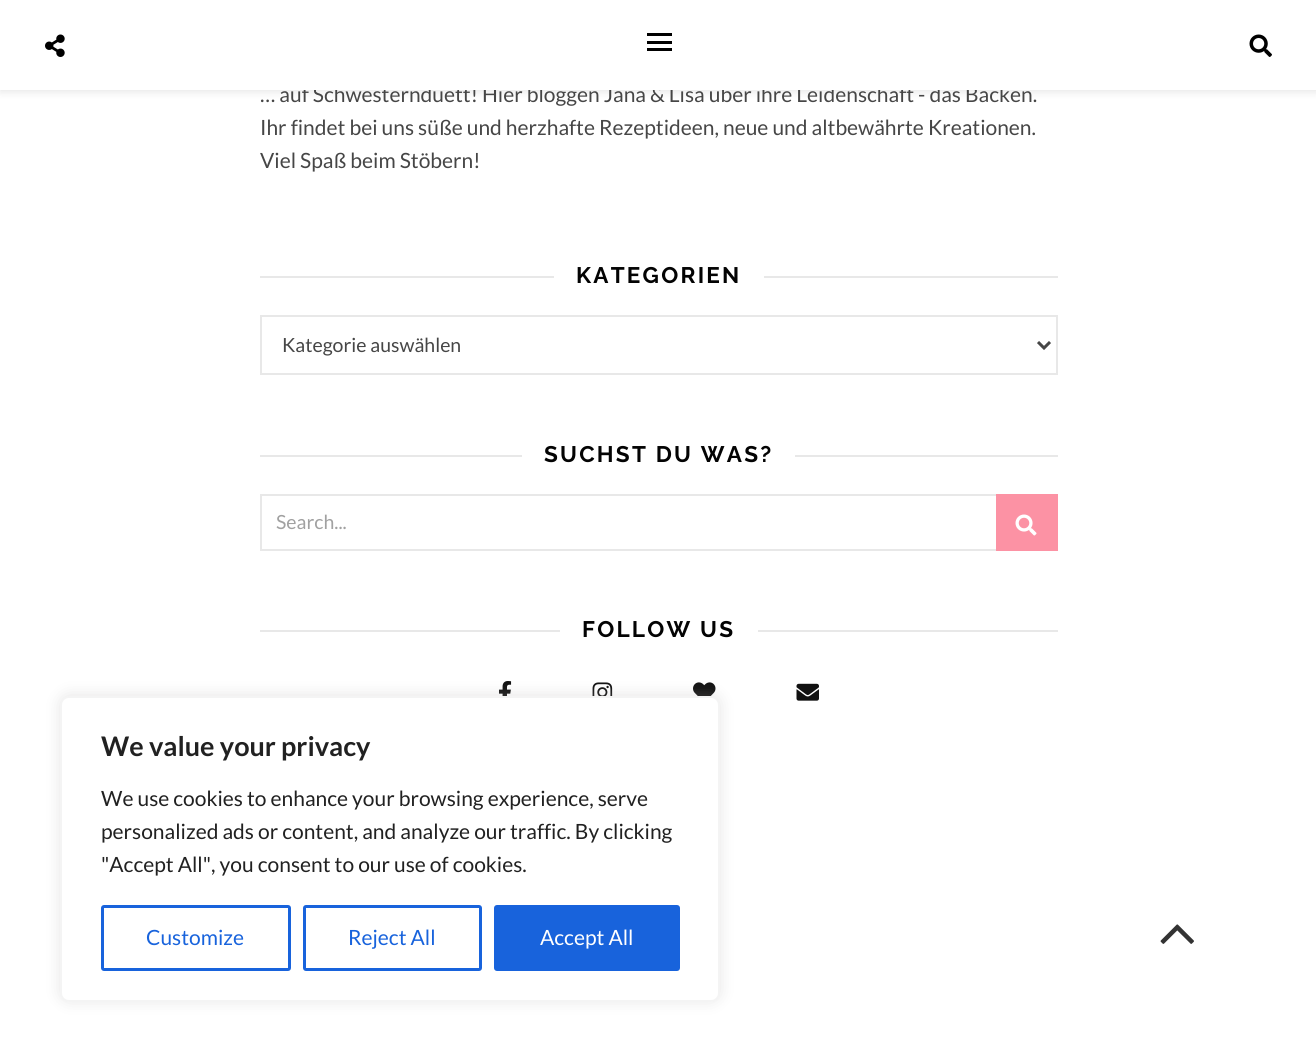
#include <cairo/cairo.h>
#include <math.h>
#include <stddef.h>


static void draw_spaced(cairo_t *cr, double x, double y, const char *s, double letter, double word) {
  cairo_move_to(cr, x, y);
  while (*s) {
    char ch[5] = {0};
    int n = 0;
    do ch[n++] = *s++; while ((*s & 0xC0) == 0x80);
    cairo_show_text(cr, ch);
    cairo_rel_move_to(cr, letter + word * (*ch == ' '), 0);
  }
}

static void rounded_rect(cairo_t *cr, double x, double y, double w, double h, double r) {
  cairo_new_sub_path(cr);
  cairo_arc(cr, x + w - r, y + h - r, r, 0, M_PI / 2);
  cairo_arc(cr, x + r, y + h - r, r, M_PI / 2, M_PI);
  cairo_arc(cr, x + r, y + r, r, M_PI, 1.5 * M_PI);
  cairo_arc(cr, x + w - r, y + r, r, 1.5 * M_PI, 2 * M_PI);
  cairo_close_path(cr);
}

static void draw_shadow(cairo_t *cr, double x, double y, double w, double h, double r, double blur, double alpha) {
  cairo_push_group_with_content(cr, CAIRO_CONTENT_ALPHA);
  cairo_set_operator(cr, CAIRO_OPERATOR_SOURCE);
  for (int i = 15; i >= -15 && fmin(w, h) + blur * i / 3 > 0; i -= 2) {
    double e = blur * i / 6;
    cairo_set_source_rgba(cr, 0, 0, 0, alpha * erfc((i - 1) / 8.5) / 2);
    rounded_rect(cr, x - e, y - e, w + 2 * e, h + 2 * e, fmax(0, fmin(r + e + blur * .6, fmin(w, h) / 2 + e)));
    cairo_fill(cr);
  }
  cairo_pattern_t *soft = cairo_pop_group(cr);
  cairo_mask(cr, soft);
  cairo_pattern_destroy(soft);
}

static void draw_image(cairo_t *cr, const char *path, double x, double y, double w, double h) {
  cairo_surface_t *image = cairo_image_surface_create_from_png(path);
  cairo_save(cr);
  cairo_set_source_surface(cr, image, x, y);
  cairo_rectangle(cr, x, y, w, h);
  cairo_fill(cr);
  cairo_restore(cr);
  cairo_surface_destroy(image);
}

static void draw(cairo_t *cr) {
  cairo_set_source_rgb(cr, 1, 1, 1);
  cairo_paint(cr);
  cairo_set_source_rgb(cr, 0, 0, 0);
  draw_shadow(cr, 0, 2, 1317, 90, 0, 4, 0.1);
  cairo_set_source_rgb(cr, 232 / 255.0, 232 / 255.0, 232 / 255.0);
  cairo_rectangle(cr, 260, 276, 294, 2);
  cairo_fill(cr);
  cairo_rectangle(cr, 764, 276, 294, 2);
  cairo_fill(cr);
  cairo_rectangle(cr, 261, 316, 796, 58);
  cairo_stroke(cr);
  cairo_new_path(cr);
  cairo_move_to(cr, 1038, 342);
  cairo_line_to(cr, 1044, 348);
  cairo_line_to(cr, 1050, 342);
  cairo_set_source_rgb(cr, 70 / 255.0, 70 / 255.0, 70 / 255.0);
  cairo_set_line_width(cr, 3);
  cairo_stroke(cr);
  cairo_set_source_rgb(cr, 232 / 255.0, 232 / 255.0, 232 / 255.0);
  cairo_rectangle(cr, 260, 455, 262, 2);
  cairo_fill(cr);
  cairo_rectangle(cr, 795, 455, 263, 2);
  cairo_fill(cr);
  cairo_rectangle(cr, 261, 495, 796, 55);
  cairo_set_line_width(cr, 2);
  cairo_stroke(cr);
  cairo_set_source_rgb(cr, 252 / 255.0, 146 / 255.0, 164 / 255.0);
  cairo_rectangle(cr, 996, 494, 62, 57);
  cairo_fill(cr);
  draw_image(cr, "images/3.png", 1015, 514, 22, 22);
  cairo_set_source_rgb(cr, 232 / 255.0, 232 / 255.0, 232 / 255.0);
  cairo_rectangle(cr, 260, 630, 300, 2);
  cairo_fill(cr);
  cairo_rectangle(cr, 758, 630, 300, 2);
  cairo_fill(cr);
  draw_image(cr, "images/4.png", 499, 681, 13, 15);
  draw_image(cr, "images/5.png", 592, 682, 21, 14);
  draw_image(cr, "images/6.png", 693, 682, 23, 14);
  draw_image(cr, "images/7.png", 796, 683, 23, 18);
  draw_image(cr, "images/8.png", 1160, 924, 34, 20);
  cairo_set_source_rgb(cr, 172 / 255.0, 171 / 255.0, 171 / 255.0);
  draw_shadow(cr, 60, 695, 660, 306, 9, 7.5, 0.3);
  cairo_set_source_rgb(cr, 1, 1, 1);
  rounded_rect(cr, 61, 697, 658, 304, 8);
  cairo_fill_preserve(cr);
  cairo_set_source_rgb(cr, 244 / 255.0, 244 / 255.0, 244 / 255.0);
  cairo_stroke(cr);
  rounded_rect(cr, 102.5, 906.5, 187, 63, 1.5);
  cairo_set_source_rgb(cr, 24 / 255.0, 99 / 255.0, 220 / 255.0);
  cairo_set_line_width(cr, 3);
  cairo_stroke(cr);
  rounded_rect(cr, 304.5, 906.5, 176, 63, 1.5);
  cairo_stroke(cr);
  rounded_rect(cr, 495.5, 906.5, 183, 63, 1.5);
  cairo_fill_preserve(cr);
  cairo_stroke(cr);
  cairo_select_font_face(cr, "Lato", CAIRO_FONT_SLANT_NORMAL, CAIRO_FONT_WEIGHT_NORMAL);
  cairo_set_font_size(cr, 21);
  cairo_set_source_rgb(cr, 70 / 255.0, 70 / 255.0, 70 / 255.0);
  cairo_move_to(cr, 260, 102);
  cairo_show_text(cr, "… auf Schwesternduett! Hier bloggen Jana & Lisa über ihre Leidenschaft - das Backen.");
  cairo_set_source_rgb(cr, 1, 1, 1);
  cairo_rectangle(cr, 0, 0, 1316, 90);
  cairo_fill(cr);
  draw_image(cr, "images/1.png", 45, 34, 20, 23);
  draw_image(cr, "images/2.png", 1249, 34, 23, 23);
  cairo_set_source_rgb(cr, 0, 0, 0);
  cairo_rectangle(cr, 647, 48, 25, 3);
  cairo_fill(cr);
  cairo_rectangle(cr, 647, 41, 25, 3);
  cairo_fill(cr);
  cairo_rectangle(cr, 647, 33, 25, 3);
  cairo_fill(cr);
  cairo_set_source_rgb(cr, 70 / 255.0, 70 / 255.0, 70 / 255.0);
  cairo_move_to(cr, 260, 135);
  cairo_show_text(cr, "Ihr findet bei uns süße und herzhafte Rezeptideen, neue und altbewährte Kreationen.");
  cairo_move_to(cr, 260, 168);
  cairo_show_text(cr, "Viel Spaß beim Stöbern!");
  cairo_select_font_face(cr, "Raleway", CAIRO_FONT_SLANT_NORMAL, CAIRO_FONT_WEIGHT_BOLD);
  cairo_set_font_size(cr, 22.5);
  cairo_set_source_rgb(cr, 3 / 255.0, 3 / 255.0, 3 / 255.0);
  draw_spaced(cr, 576, 283, "KATEGORIEN", 2.25, 0);
  cairo_select_font_face(cr, "Lato", CAIRO_FONT_SLANT_NORMAL, CAIRO_FONT_WEIGHT_NORMAL);
  cairo_set_font_size(cr, 19.5);
  cairo_set_source_rgb(cr, 70 / 255.0, 70 / 255.0, 70 / 255.0);
  cairo_move_to(cr, 282, 352);
  cairo_show_text(cr, "Kategorie auswählen");
  cairo_select_font_face(cr, "Raleway", CAIRO_FONT_SLANT_NORMAL, CAIRO_FONT_WEIGHT_BOLD);
  cairo_set_font_size(cr, 22.5);
  cairo_set_source_rgb(cr, 3 / 255.0, 3 / 255.0, 3 / 255.0);
  draw_spaced(cr, 544, 462, "SUCHST DU WAS?", 2.25, 0);
  cairo_select_font_face(cr, "Lato", CAIRO_FONT_SLANT_NORMAL, CAIRO_FONT_WEIGHT_NORMAL);
  cairo_set_font_size(cr, 19.5);
  cairo_set_source_rgb(cr, 161 / 255.0, 161 / 255.0, 161 / 255.0);
  cairo_move_to(cr, 276, 529);
  cairo_show_text(cr, "Search...");
  cairo_select_font_face(cr, "Raleway", CAIRO_FONT_SLANT_NORMAL, CAIRO_FONT_WEIGHT_BOLD);
  cairo_set_font_size(cr, 22.5);
  cairo_set_source_rgb(cr, 3 / 255.0, 3 / 255.0, 3 / 255.0);
  draw_spaced(cr, 582, 637, "FOLLOW US", 2.25, 0);
  cairo_select_font_face(cr, "Lato", CAIRO_FONT_SLANT_NORMAL, CAIRO_FONT_WEIGHT_BOLD);
  cairo_set_font_size(cr, 27);
  cairo_set_source_rgb(cr, 33 / 255.0, 33 / 255.0, 33 / 255.0);
  cairo_move_to(cr, 101, 756);
  cairo_show_text(cr, "We value your privacy");
  cairo_select_font_face(cr, "Lato", CAIRO_FONT_SLANT_NORMAL, CAIRO_FONT_WEIGHT_NORMAL);
  cairo_set_font_size(cr, 21);
  cairo_move_to(cr, 101, 806);
  cairo_show_text(cr, "We use cookies to enhance your browsing experience, serve");
  cairo_move_to(cr, 101, 839);
  cairo_show_text(cr, "personalized ads or content, and analyze our traffic. By clicking");
  cairo_move_to(cr, 101, 872);
  cairo_show_text(cr, "\"Accept All\", you consent to our use of cookies.");
  cairo_set_source_rgb(cr, 24 / 255.0, 99 / 255.0, 220 / 255.0);
  cairo_move_to(cr, 146, 945);
  cairo_show_text(cr, "Customize");
  cairo_move_to(cr, 348, 945);
  cairo_show_text(cr, "Reject All");
  cairo_set_source_rgb(cr, 1, 1, 1);
  cairo_move_to(cr, 540, 945);
  cairo_show_text(cr, "Accept All");
}

int main(void) {
  cairo_surface_t *surface = cairo_image_surface_create(CAIRO_FORMAT_RGB24, 1316, 1062);
  cairo_t *cr = cairo_create(surface);
  cairo_font_options_t *options = cairo_font_options_create();
  cairo_font_options_set_hint_metrics(options, CAIRO_HINT_METRICS_OFF);
  cairo_font_options_set_hint_style(options, CAIRO_HINT_STYLE_NONE);
  cairo_set_font_options(cr, options);
  cairo_set_miter_limit(cr, 4);
  draw(cr);
  cairo_surface_write_to_png(surface, "out.png");
  cairo_font_options_destroy(options);
  cairo_destroy(cr);
  cairo_surface_destroy(surface);
  return 0;
}
